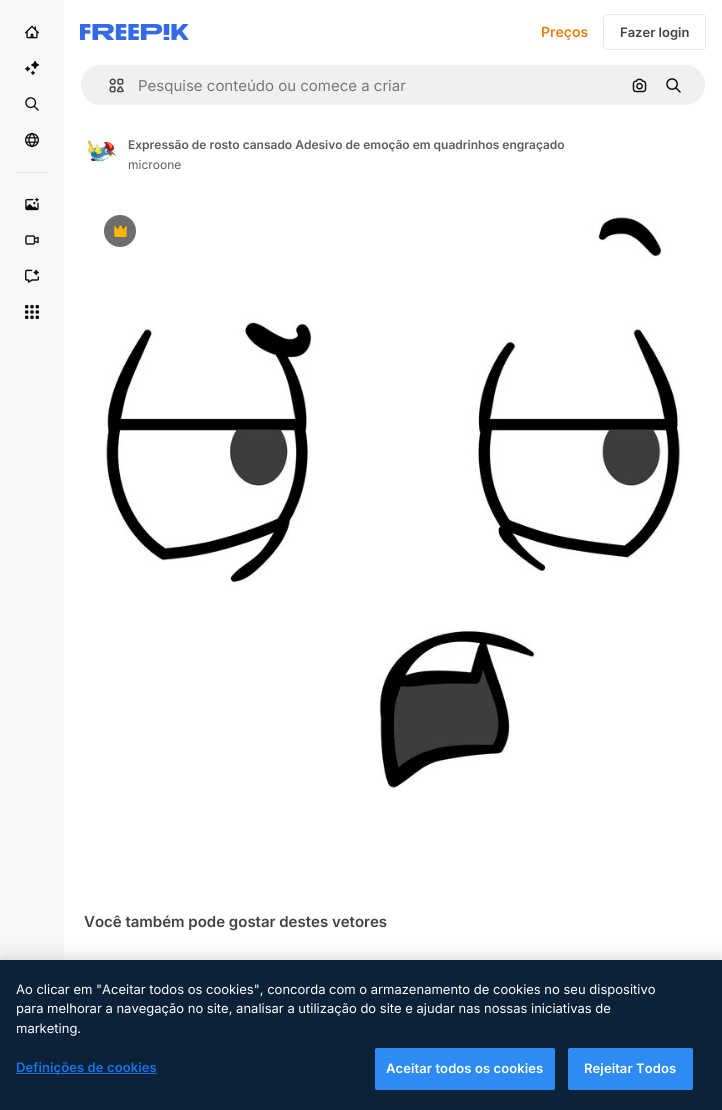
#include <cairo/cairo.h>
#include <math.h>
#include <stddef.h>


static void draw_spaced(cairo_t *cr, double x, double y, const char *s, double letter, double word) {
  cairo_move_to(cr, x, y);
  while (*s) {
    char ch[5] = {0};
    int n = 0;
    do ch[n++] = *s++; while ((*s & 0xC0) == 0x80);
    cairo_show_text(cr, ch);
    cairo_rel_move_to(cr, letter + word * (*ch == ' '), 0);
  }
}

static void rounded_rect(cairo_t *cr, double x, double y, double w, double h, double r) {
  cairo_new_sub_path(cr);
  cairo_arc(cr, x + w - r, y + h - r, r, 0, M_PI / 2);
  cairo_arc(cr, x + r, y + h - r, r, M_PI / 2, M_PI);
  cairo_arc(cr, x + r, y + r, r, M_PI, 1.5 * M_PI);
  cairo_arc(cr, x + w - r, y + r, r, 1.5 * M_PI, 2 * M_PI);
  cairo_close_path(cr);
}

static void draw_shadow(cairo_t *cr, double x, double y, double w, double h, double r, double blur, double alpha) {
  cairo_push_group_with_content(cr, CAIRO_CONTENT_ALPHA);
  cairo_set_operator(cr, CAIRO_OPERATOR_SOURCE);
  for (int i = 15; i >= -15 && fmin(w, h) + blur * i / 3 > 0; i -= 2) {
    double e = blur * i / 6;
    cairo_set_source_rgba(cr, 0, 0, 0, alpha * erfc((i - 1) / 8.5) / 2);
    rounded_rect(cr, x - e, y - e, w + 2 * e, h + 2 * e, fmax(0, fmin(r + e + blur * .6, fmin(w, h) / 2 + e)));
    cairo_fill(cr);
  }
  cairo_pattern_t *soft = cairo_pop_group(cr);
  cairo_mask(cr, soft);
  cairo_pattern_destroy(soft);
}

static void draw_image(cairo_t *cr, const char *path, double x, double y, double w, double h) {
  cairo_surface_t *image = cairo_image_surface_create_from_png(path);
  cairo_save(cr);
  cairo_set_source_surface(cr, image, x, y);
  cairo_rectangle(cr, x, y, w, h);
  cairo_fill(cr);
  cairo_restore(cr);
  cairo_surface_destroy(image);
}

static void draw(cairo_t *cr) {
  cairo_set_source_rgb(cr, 1, 1, 1);
  cairo_paint(cr);
  cairo_set_source_rgb(cr, 247 / 255.0, 247 / 255.0, 247 / 255.0);
  cairo_rectangle(cr, 0, 0, 64, 960);
  cairo_fill(cr);
  draw_image(cr, "images/1.png", 25, 25, 14, 14);
  draw_image(cr, "images/2.png", 25, 61, 14, 14);
  draw_image(cr, "images/3.png", 25, 97, 14, 14);
  draw_image(cr, "images/4.png", 25, 133, 14, 14);
  cairo_set_source_rgb(cr, 224 / 255.0, 224 / 255.0, 224 / 255.0);
  cairo_rectangle(cr, 16, 172, 32, 1);
  cairo_fill(cr);
  draw_image(cr, "images/5.png", 25, 197, 14, 14);
  draw_image(cr, "images/6.png", 25, 235, 14, 10);
  draw_image(cr, "images/7.png", 25, 269, 14, 14);
  draw_image(cr, "images/8.png", 25, 305, 14, 14);
  draw_image(cr, "images/9.png", 80, 24, 109, 16);
  rounded_rect(cr, 603.5, 14.5, 102, 35, 3.5);
  cairo_set_source_rgb(cr, 231 / 255.0, 231 / 255.0, 231 / 255.0);
  cairo_set_line_width(cr, 1);
  cairo_stroke(cr);
  cairo_set_source_rgb(cr, 240 / 255.0, 240 / 255.0, 240 / 255.0);
  rounded_rect(cr, 80.5, 64.5, 625, 41, 20.5);
  cairo_fill_preserve(cr);
  cairo_set_source_rgb(cr, 1, 1, 1);
  cairo_stroke(cr);
  draw_image(cr, "images/10.png", 109, 78, 15, 15);
  draw_image(cr, "images/11.png", 632, 78, 15, 15);
  draw_image(cr, "images/12.png", 666, 78, 15, 15);
  draw_image(cr, "images/13.png", 87, 139, 30, 24);
  draw_image(cr, "images/15.png", 105, 215, 578, 575);
  cairo_set_source_rgb(cr, 110 / 255.0, 110 / 255.0, 110 / 255.0);
  cairo_arc(cr, 120, 231, 16, 0, 2 * M_PI);
  cairo_fill(cr);
  draw_image(cr, "images/14.png", 114, 225, 13, 12);
  cairo_set_source_rgb(cr, 0, 0, 0);
  draw_shadow(cr, 0, 960, 722, 150, 0, 9, 0.2);
  cairo_set_source_rgb(cr, 11 / 255.0, 34 / 255.0, 57 / 255.0);
  cairo_rectangle(cr, 0, 960, 722, 150);
  cairo_fill(cr);
  cairo_set_source_rgb(cr, 18 / 255.0, 115 / 255.0, 235 / 255.0);
  cairo_rectangle(cr, 16, 1073, 141, 1);
  cairo_fill(cr);
  cairo_set_source_rgb(cr, 44 / 255.0, 140 / 255.0, 244 / 255.0);
  rounded_rect(cr, 375.5, 1048.5, 179, 41, 1.5);
  cairo_fill_preserve(cr);
  cairo_stroke(cr);
  rounded_rect(cr, 568.5, 1048.5, 124, 41, 1.5);
  cairo_fill_preserve(cr);
  cairo_stroke(cr);
  cairo_select_font_face(cr, "Inter SemiBold", CAIRO_FONT_SLANT_NORMAL, CAIRO_FONT_WEIGHT_NORMAL);
  cairo_set_font_size(cr, 14);
  cairo_set_source_rgb(cr, 234 / 255.0, 126 / 255.0, 17 / 255.0);
  cairo_move_to(cr, 541, 37);
  cairo_show_text(cr, "Preços");
  cairo_set_font_size(cr, 13);
  cairo_set_source_rgb(cr, 66 / 255.0, 66 / 255.0, 66 / 255.0);
  cairo_move_to(cr, 620, 37);
  cairo_show_text(cr, "Fazer login");
  cairo_select_font_face(cr, "Inter", CAIRO_FONT_SLANT_NORMAL, CAIRO_FONT_WEIGHT_NORMAL);
  cairo_set_font_size(cr, 15);
  cairo_set_source_rgb(cr, 119 / 255.0, 119 / 255.0, 119 / 255.0);
  cairo_move_to(cr, 138, 91);
  cairo_show_text(cr, "Pesquise conteúdo ou comece a criar");
  cairo_select_font_face(cr, "Inter SemiBold", CAIRO_FONT_SLANT_NORMAL, CAIRO_FONT_WEIGHT_NORMAL);
  cairo_set_font_size(cr, 12);
  cairo_set_source_rgb(cr, 92 / 255.0, 92 / 255.0, 92 / 255.0);
  cairo_move_to(cr, 128, 149);
  cairo_show_text(cr, "Expressão de rosto cansado Adesivo de emoção em quadrinhos engraçado");
  cairo_select_font_face(cr, "Inter", CAIRO_FONT_SLANT_NORMAL, CAIRO_FONT_WEIGHT_NORMAL);
  cairo_move_to(cr, 128, 169);
  cairo_show_text(cr, "microone");
  cairo_select_font_face(cr, "Inter SemiBold", CAIRO_FONT_SLANT_NORMAL, CAIRO_FONT_WEIGHT_NORMAL);
  cairo_set_font_size(cr, 15);
  cairo_set_source_rgb(cr, 66 / 255.0, 66 / 255.0, 66 / 255.0);
  cairo_move_to(cr, 84, 927);
  cairo_show_text(cr, "Você também pode gostar destes vetores");
  cairo_select_font_face(cr, "Inter", CAIRO_FONT_SLANT_NORMAL, CAIRO_FONT_WEIGHT_NORMAL);
  cairo_set_font_size(cr, 13);
  cairo_set_source_rgb(cr, 1, 1, 1);
  cairo_move_to(cr, 16, 994);
  cairo_show_text(cr, "Ao clicar em \"Aceitar todos os cookies\", concorda com o armazenamento de cookies no seu dispositivo");
  cairo_move_to(cr, 16, 1013);
  cairo_show_text(cr, "para melhorar a navegação no site, analisar a utilização do site e ajudar nas nossas iniciativas de");
  cairo_move_to(cr, 16, 1033);
  cairo_show_text(cr, "marketing.");
  cairo_select_font_face(cr, "Inter SemiBold", CAIRO_FONT_SLANT_NORMAL, CAIRO_FONT_WEIGHT_NORMAL);
  cairo_set_source_rgb(cr, 18 / 255.0, 115 / 255.0, 235 / 255.0);
  draw_spaced(cr, 16, 1072, "Definições de cookies", 0.1, 0);
  cairo_set_source_rgb(cr, 1, 1, 1);
  draw_spaced(cr, 386, 1073, "Aceitar todos os cookies", 0.1, 0);
  draw_spaced(cr, 584, 1073, "Rejeitar Todos", 0.1, 0);
}

int main(void) {
  cairo_surface_t *surface = cairo_image_surface_create(CAIRO_FORMAT_RGB24, 722, 1110);
  cairo_t *cr = cairo_create(surface);
  cairo_font_options_t *options = cairo_font_options_create();
  cairo_font_options_set_hint_metrics(options, CAIRO_HINT_METRICS_OFF);
  cairo_font_options_set_hint_style(options, CAIRO_HINT_STYLE_NONE);
  cairo_set_font_options(cr, options);
  cairo_set_miter_limit(cr, 4);
  draw(cr);
  cairo_surface_write_to_png(surface, "out.png");
  cairo_font_options_destroy(options);
  cairo_destroy(cr);
  cairo_surface_destroy(surface);
  return 0;
}
